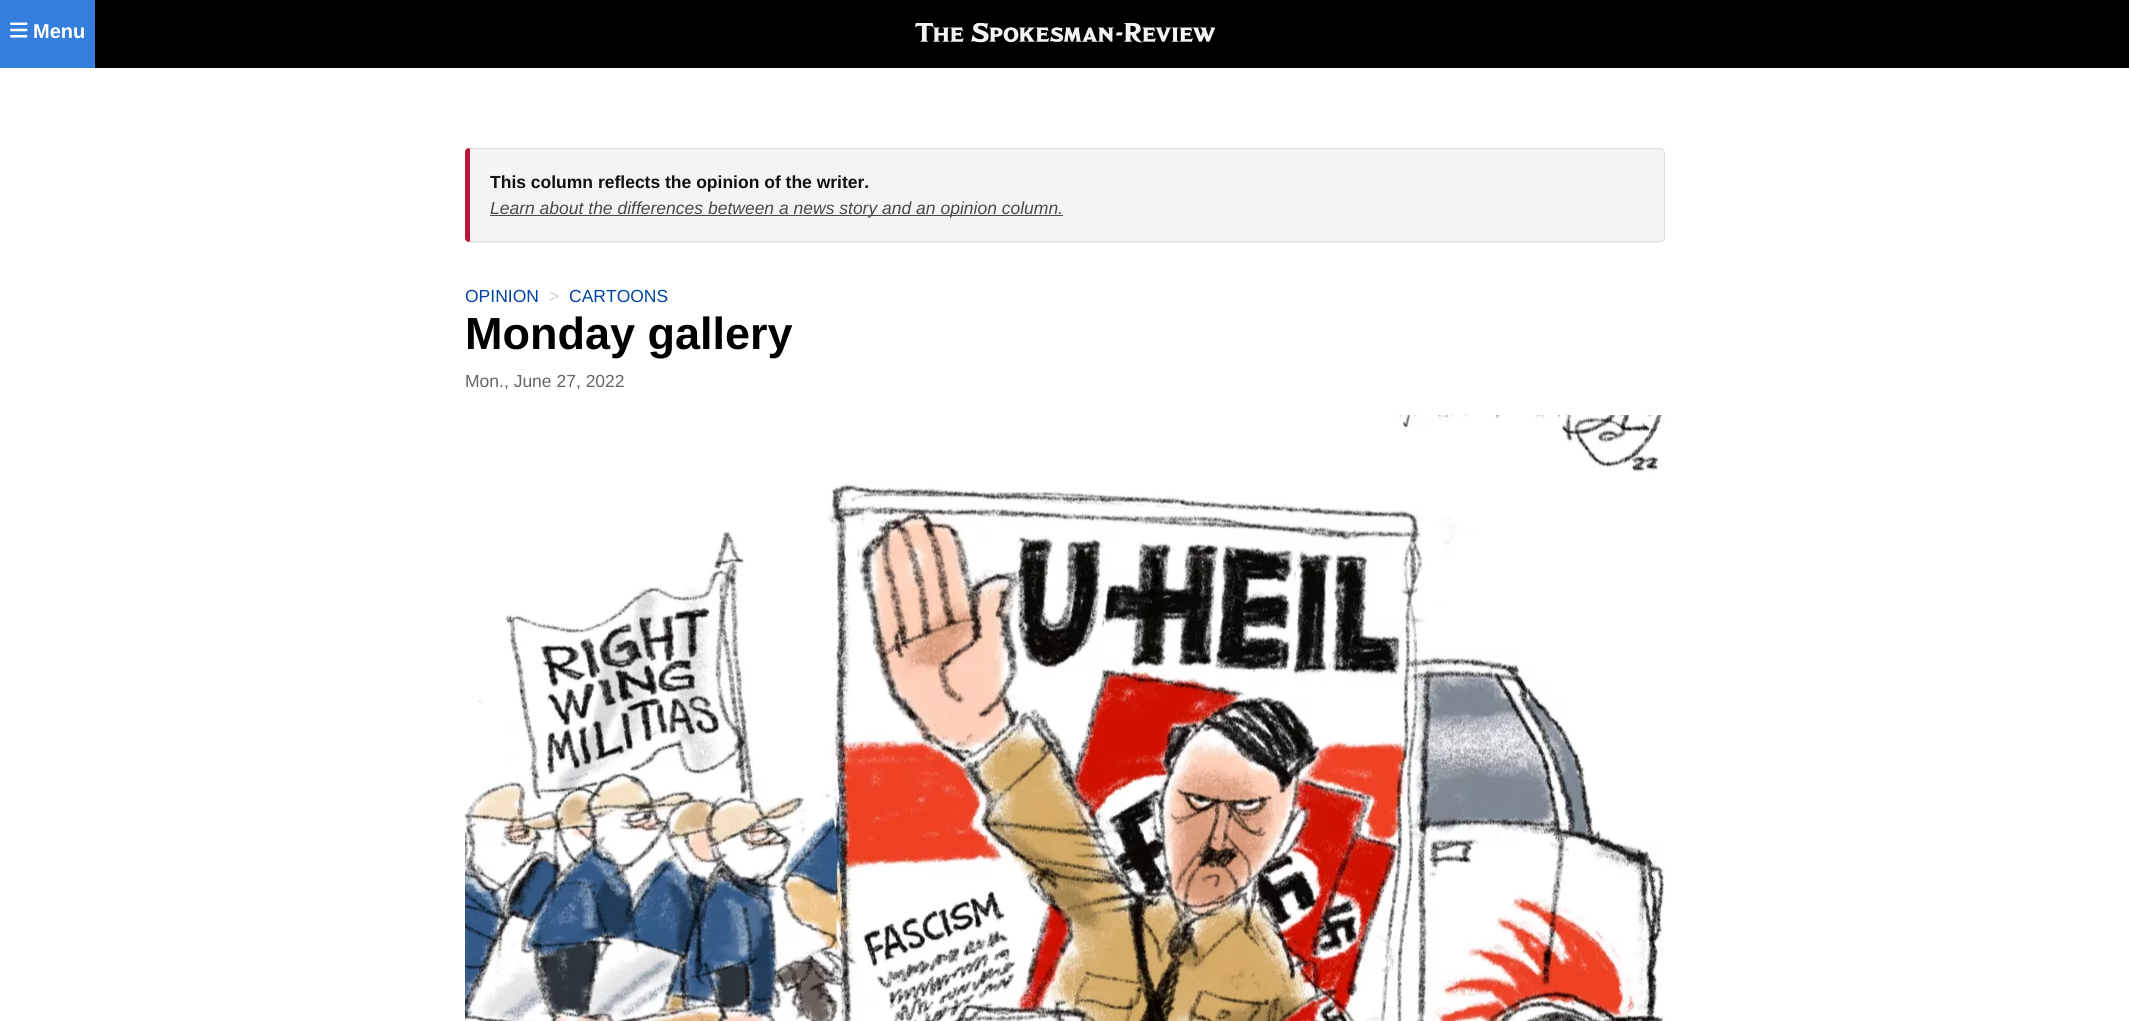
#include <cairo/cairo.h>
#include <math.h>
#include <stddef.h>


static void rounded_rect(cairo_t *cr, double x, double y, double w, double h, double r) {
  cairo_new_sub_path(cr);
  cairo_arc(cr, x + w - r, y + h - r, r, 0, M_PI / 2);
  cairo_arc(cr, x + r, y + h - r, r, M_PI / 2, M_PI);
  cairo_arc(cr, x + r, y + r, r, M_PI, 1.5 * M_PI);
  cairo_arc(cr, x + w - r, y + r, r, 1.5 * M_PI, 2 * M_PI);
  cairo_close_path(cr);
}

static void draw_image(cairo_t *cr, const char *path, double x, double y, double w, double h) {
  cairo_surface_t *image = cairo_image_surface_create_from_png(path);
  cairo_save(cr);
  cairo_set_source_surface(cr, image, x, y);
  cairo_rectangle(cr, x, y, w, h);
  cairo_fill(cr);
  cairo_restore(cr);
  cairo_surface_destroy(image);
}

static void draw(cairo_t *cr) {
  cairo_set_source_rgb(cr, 1, 1, 1);
  cairo_paint(cr);
  cairo_set_source_rgb(cr, 0, 0, 0);
  cairo_rectangle(cr, 95, 0, 2034, 68);
  cairo_fill(cr);
  cairo_set_source_rgb(cr, 53 / 255.0, 126 / 255.0, 221 / 255.0);
  cairo_rectangle(cr, 0, 0, 95, 68);
  cairo_fill(cr);
  draw_image(cr, "images/1.png", 10, 22, 18, 16);
  draw_image(cr, "images/2.png", 915, 23, 300, 20);
  cairo_set_source_rgb(cr, 244 / 255.0, 244 / 255.0, 244 / 255.0);
  rounded_rect(cr, 465, 148, 1200, 95, 5);
  cairo_fill(cr);
  cairo_set_source_rgba(cr, 0, 0, 0, 0.1);
  cairo_new_path(cr);
  cairo_move_to(cr, 470, 148);
  cairo_line_to(cr, 468, 148);
  cairo_line_to(cr, 471, 149);
  cairo_line_to(cr, 1660, 149);
  cairo_line_to(cr, 1663, 150);
  cairo_line_to(cr, 1663, 149);
  cairo_line_to(cr, 1660, 148);
  cairo_close_path(cr);
  cairo_fill(cr);
  cairo_new_path(cr);
  cairo_move_to(cr, 1665, 238);
  cairo_line_to(cr, 1665, 152);
  cairo_line_to(cr, 1663, 149);
  cairo_line_to(cr, 1663, 150);
  cairo_line_to(cr, 1664, 152);
  cairo_line_to(cr, 1664, 238);
  cairo_line_to(cr, 1663, 240);
  cairo_line_to(cr, 1663, 241);
  cairo_curve_to(cr, 1664, 240, 1665, 239, 1665, 238);
  cairo_close_path(cr);
  cairo_fill(cr);
  cairo_set_source_rgb(cr, 220 / 255.0, 220 / 255.0, 220 / 255.0);
  cairo_new_path(cr);
  cairo_move_to(cr, 1663, 241);
  cairo_line_to(cr, 1660, 242);
  cairo_line_to(cr, 468, 242);
  cairo_line_to(cr, 471, 241);
  cairo_line_to(cr, 1660, 241);
  cairo_line_to(cr, 1663, 240);
  cairo_close_path(cr);
  cairo_fill(cr);
  cairo_set_source_rgb(cr, 179 / 255.0, 25 / 255.0, 52 / 255.0);
  cairo_new_path(cr);
  cairo_move_to(cr, 470, 149);
  cairo_line_to(cr, 471, 149);
  cairo_line_to(cr, 468, 148);
  cairo_curve_to(cr, 466, 149, 465, 150, 465, 152);
  cairo_line_to(cr, 465, 238);
  cairo_curve_to(cr, 465, 240, 466, 241, 468, 242);
  cairo_line_to(cr, 471, 241);
  cairo_line_to(cr, 470, 241);
  cairo_close_path(cr);
  cairo_fill(cr);
  cairo_set_source_rgb(cr, 73 / 255.0, 73 / 255.0, 73 / 255.0);
  cairo_rectangle(cr, 490, 215, 573, 1);
  cairo_fill(cr);
  draw_image(cr, "images/3.png", 465, 415, 1200, 606);
  cairo_select_font_face(cr, "Liberation Sans", CAIRO_FONT_SLANT_NORMAL, CAIRO_FONT_WEIGHT_BOLD);
  cairo_set_font_size(cr, 20);
  cairo_set_source_rgb(cr, 1, 1, 1);
  cairo_move_to(cr, 33, 38);
  cairo_show_text(cr, "Menu");
  cairo_set_font_size(cr, 17.5);
  cairo_set_source_rgb(cr, 17 / 255.0, 17 / 255.0, 17 / 255.0);
  cairo_move_to(cr, 490, 188);
  cairo_show_text(cr, "This column reflects the opinion of the writer.");
  cairo_select_font_face(cr, "Liberation Sans", CAIRO_FONT_SLANT_ITALIC, CAIRO_FONT_WEIGHT_NORMAL);
  cairo_set_source_rgb(cr, 73 / 255.0, 73 / 255.0, 73 / 255.0);
  cairo_move_to(cr, 490, 214);
  cairo_show_text(cr, "Learn about the differences between a news story and an opinion column.");
  cairo_select_font_face(cr, "Liberation Sans", CAIRO_FONT_SLANT_NORMAL, CAIRO_FONT_WEIGHT_NORMAL);
  cairo_set_source_rgb(cr, 0, 68 / 255.0, 158 / 255.0);
  cairo_move_to(cr, 465, 302);
  cairo_show_text(cr, "OPINION");
  cairo_set_source_rgb(cr, 204 / 255.0, 204 / 255.0, 204 / 255.0);
  cairo_move_to(cr, 549, 302);
  cairo_show_text(cr, ">");
  cairo_set_source_rgb(cr, 0, 68 / 255.0, 158 / 255.0);
  cairo_move_to(cr, 569, 302);
  cairo_show_text(cr, "CARTOONS");
  cairo_select_font_face(cr, "Liberation Sans", CAIRO_FONT_SLANT_NORMAL, CAIRO_FONT_WEIGHT_BOLD);
  cairo_set_font_size(cr, 45);
  cairo_set_source_rgb(cr, 0, 0, 0);
  cairo_move_to(cr, 465, 349);
  cairo_show_text(cr, "Monday gallery");
  cairo_select_font_face(cr, "Liberation Sans", CAIRO_FONT_SLANT_NORMAL, CAIRO_FONT_WEIGHT_NORMAL);
  cairo_set_font_size(cr, 17.5);
  cairo_set_source_rgb(cr, 102 / 255.0, 102 / 255.0, 102 / 255.0);
  cairo_move_to(cr, 465, 387);
  cairo_show_text(cr, "Mon., June 27, 2022");
}

int main(void) {
  cairo_surface_t *surface = cairo_image_surface_create(CAIRO_FORMAT_RGB24, 2129, 1021);
  cairo_t *cr = cairo_create(surface);
  cairo_font_options_t *options = cairo_font_options_create();
  cairo_font_options_set_hint_metrics(options, CAIRO_HINT_METRICS_OFF);
  cairo_font_options_set_hint_style(options, CAIRO_HINT_STYLE_NONE);
  cairo_set_font_options(cr, options);
  cairo_set_miter_limit(cr, 4);
  draw(cr);
  cairo_surface_write_to_png(surface, "out.png");
  cairo_font_options_destroy(options);
  cairo_destroy(cr);
  cairo_surface_destroy(surface);
  return 0;
}
